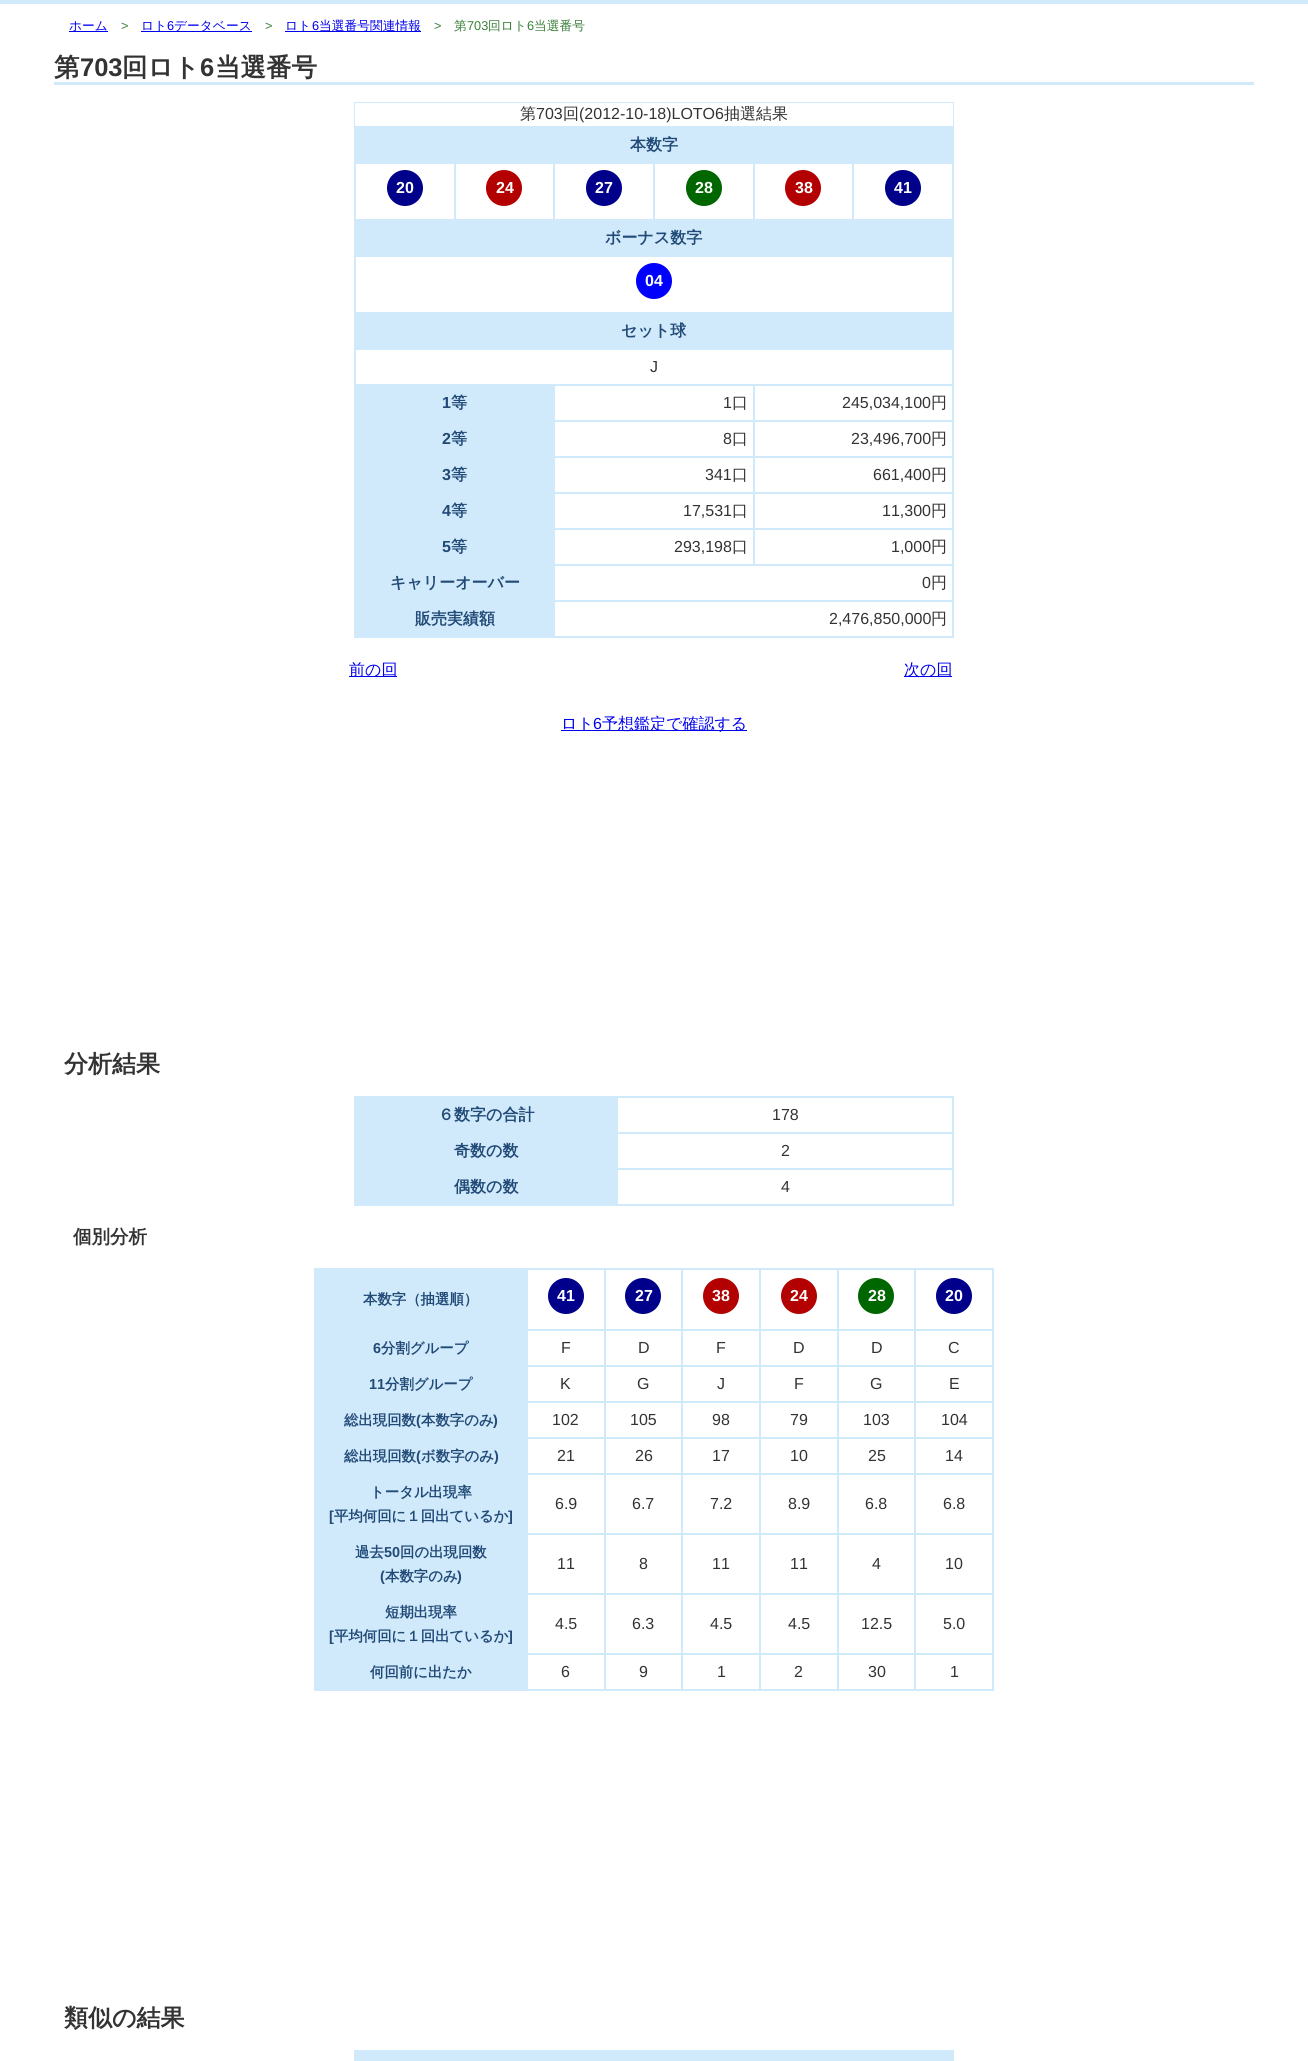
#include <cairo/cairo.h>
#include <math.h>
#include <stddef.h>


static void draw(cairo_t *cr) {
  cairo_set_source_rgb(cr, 1, 1, 1);
  cairo_paint(cr);
  cairo_set_source_rgb(cr, 208 / 255.0, 234 / 255.0, 251 / 255.0);
  cairo_rectangle(cr, 0, 0, 1308, 4);
  cairo_fill(cr);
  cairo_set_source_rgb(cr, 0, 0, 238 / 255.0);
  cairo_rectangle(cr, 69, 31, 39, 1);
  cairo_fill(cr);
  cairo_rectangle(cr, 141, 31, 111, 1);
  cairo_fill(cr);
  cairo_rectangle(cr, 285, 31, 136, 1);
  cairo_fill(cr);
  cairo_set_source_rgb(cr, 208 / 255.0, 234 / 255.0, 251 / 255.0);
  cairo_rectangle(cr, 54, 82, 1200, 3);
  cairo_fill(cr);
  cairo_rectangle(cr, 354, 102, 600, 1);
  cairo_fill(cr);
  cairo_rectangle(cr, 953, 102, 1, 246);
  cairo_fill(cr);
  cairo_rectangle(cr, 354, 637, 199, 1);
  cairo_fill(cr);
  cairo_rectangle(cr, 354, 102, 1, 536);
  cairo_fill(cr);
  cairo_rectangle(cr, 355, 128, 598, 34);
  cairo_fill(cr);
  cairo_rectangle(cr, 354, 126, 600, 2);
  cairo_fill(cr);
  cairo_rectangle(cr, 852, 162, 102, 2);
  cairo_fill(cr);
  cairo_rectangle(cr, 354, 219, 600, 2);
  cairo_fill(cr);
  cairo_rectangle(cr, 852, 162, 2, 59);
  cairo_fill(cr);
  cairo_rectangle(cr, 753, 162, 101, 2);
  cairo_fill(cr);
  cairo_rectangle(cr, 753, 162, 2, 59);
  cairo_fill(cr);
  cairo_rectangle(cr, 653, 162, 102, 2);
  cairo_fill(cr);
  cairo_rectangle(cr, 653, 162, 2, 59);
  cairo_fill(cr);
  cairo_rectangle(cr, 553, 162, 102, 2);
  cairo_fill(cr);
  cairo_rectangle(cr, 553, 162, 2, 59);
  cairo_fill(cr);
  cairo_rectangle(cr, 454, 162, 101, 2);
  cairo_fill(cr);
  cairo_rectangle(cr, 454, 162, 2, 59);
  cairo_fill(cr);
  cairo_rectangle(cr, 354, 162, 102, 2);
  cairo_fill(cr);
  cairo_rectangle(cr, 355, 162, 1, 59);
  cairo_fill(cr);
  cairo_set_source_rgb(cr, 0, 0, 139 / 255.0);
  cairo_arc(cr, 405, 188, 18, 0, 2 * M_PI);
  cairo_fill(cr);
  cairo_set_source_rgb(cr, 179 / 255.0, 0, 0);
  cairo_arc(cr, 504, 188, 18, 0, 2 * M_PI);
  cairo_fill(cr);
  cairo_set_source_rgb(cr, 0, 0, 139 / 255.0);
  cairo_arc(cr, 604, 188, 18, 0, 2 * M_PI);
  cairo_fill(cr);
  cairo_set_source_rgb(cr, 0, 102 / 255.0, 0);
  cairo_arc(cr, 704, 188, 18, 0, 2 * M_PI);
  cairo_fill(cr);
  cairo_set_source_rgb(cr, 179 / 255.0, 0, 0);
  cairo_arc(cr, 803, 188, 18, 0, 2 * M_PI);
  cairo_fill(cr);
  cairo_set_source_rgb(cr, 208 / 255.0, 234 / 255.0, 251 / 255.0);
  cairo_rectangle(cr, 952, 162, 1, 59);
  cairo_fill(cr);
  cairo_set_source_rgb(cr, 0, 0, 139 / 255.0);
  cairo_arc(cr, 903, 188, 18, 0, 2 * M_PI);
  cairo_fill(cr);
  cairo_set_source_rgb(cr, 208 / 255.0, 234 / 255.0, 251 / 255.0);
  cairo_rectangle(cr, 355, 221, 598, 34);
  cairo_fill(cr);
  cairo_rectangle(cr, 354, 255, 600, 2);
  cairo_fill(cr);
  cairo_rectangle(cr, 354, 312, 600, 2);
  cairo_fill(cr);
  cairo_rectangle(cr, 952, 255, 1, 59);
  cairo_fill(cr);
  cairo_rectangle(cr, 355, 255, 1, 59);
  cairo_fill(cr);
  cairo_set_source_rgb(cr, 0, 0, 1);
  cairo_arc(cr, 654, 281, 18, 0, 2 * M_PI);
  cairo_fill(cr);
  cairo_set_source_rgb(cr, 208 / 255.0, 234 / 255.0, 251 / 255.0);
  cairo_rectangle(cr, 355, 314, 598, 34);
  cairo_fill(cr);
  cairo_rectangle(cr, 354, 348, 600, 2);
  cairo_fill(cr);
  cairo_rectangle(cr, 753, 384, 201, 2);
  cairo_fill(cr);
  cairo_rectangle(cr, 753, 420, 201, 2);
  cairo_fill(cr);
  cairo_rectangle(cr, 753, 456, 201, 2);
  cairo_fill(cr);
  cairo_rectangle(cr, 753, 492, 201, 2);
  cairo_fill(cr);
  cairo_rectangle(cr, 753, 528, 201, 2);
  cairo_fill(cr);
  cairo_rectangle(cr, 553, 564, 401, 2);
  cairo_fill(cr);
  cairo_rectangle(cr, 553, 600, 401, 2);
  cairo_fill(cr);
  cairo_rectangle(cr, 952, 600, 2, 38);
  cairo_fill(cr);
  cairo_rectangle(cr, 952, 564, 2, 38);
  cairo_fill(cr);
  cairo_rectangle(cr, 952, 528, 2, 38);
  cairo_fill(cr);
  cairo_rectangle(cr, 952, 492, 2, 38);
  cairo_fill(cr);
  cairo_rectangle(cr, 952, 456, 2, 38);
  cairo_fill(cr);
  cairo_rectangle(cr, 952, 420, 2, 38);
  cairo_fill(cr);
  cairo_rectangle(cr, 952, 384, 2, 38);
  cairo_fill(cr);
  cairo_rectangle(cr, 952, 348, 2, 38);
  cairo_fill(cr);
  cairo_rectangle(cr, 753, 528, 2, 38);
  cairo_fill(cr);
  cairo_rectangle(cr, 553, 528, 202, 2);
  cairo_fill(cr);
  cairo_rectangle(cr, 753, 492, 2, 38);
  cairo_fill(cr);
  cairo_rectangle(cr, 553, 492, 202, 2);
  cairo_fill(cr);
  cairo_rectangle(cr, 753, 456, 2, 38);
  cairo_fill(cr);
  cairo_rectangle(cr, 553, 456, 202, 2);
  cairo_fill(cr);
  cairo_rectangle(cr, 753, 420, 2, 38);
  cairo_fill(cr);
  cairo_rectangle(cr, 553, 420, 202, 2);
  cairo_fill(cr);
  cairo_rectangle(cr, 753, 384, 2, 38);
  cairo_fill(cr);
  cairo_rectangle(cr, 553, 384, 202, 2);
  cairo_fill(cr);
  cairo_rectangle(cr, 553, 636, 401, 2);
  cairo_fill(cr);
  cairo_rectangle(cr, 553, 600, 2, 38);
  cairo_fill(cr);
  cairo_rectangle(cr, 553, 564, 2, 38);
  cairo_fill(cr);
  cairo_rectangle(cr, 553, 528, 2, 38);
  cairo_fill(cr);
  cairo_rectangle(cr, 553, 492, 2, 38);
  cairo_fill(cr);
  cairo_rectangle(cr, 553, 456, 2, 38);
  cairo_fill(cr);
  cairo_rectangle(cr, 553, 420, 2, 38);
  cairo_fill(cr);
  cairo_rectangle(cr, 553, 384, 2, 38);
  cairo_fill(cr);
  cairo_rectangle(cr, 354, 384, 201, 2);
  cairo_fill(cr);
  cairo_rectangle(cr, 355, 348, 1, 38);
  cairo_fill(cr);
  cairo_rectangle(cr, 355, 386, 198, 251);
  cairo_fill(cr);
  cairo_set_source_rgb(cr, 0, 0, 238 / 255.0);
  cairo_rectangle(cr, 349, 676, 48, 1);
  cairo_fill(cr);
  cairo_rectangle(cr, 904, 676, 48, 1);
  cairo_fill(cr);
  cairo_rectangle(cr, 561, 730, 186, 1);
  cairo_fill(cr);
  cairo_set_source_rgb(cr, 208 / 255.0, 234 / 255.0, 251 / 255.0);
  cairo_rectangle(cr, 354, 1096, 262, 1);
  cairo_fill(cr);
  cairo_rectangle(cr, 354, 1205, 262, 1);
  cairo_fill(cr);
  cairo_rectangle(cr, 354, 1096, 1, 110);
  cairo_fill(cr);
  cairo_rectangle(cr, 355, 1097, 261, 108);
  cairo_fill(cr);
  cairo_rectangle(cr, 616, 1096, 338, 2);
  cairo_fill(cr);
  cairo_rectangle(cr, 616, 1132, 338, 2);
  cairo_fill(cr);
  cairo_rectangle(cr, 616, 1168, 338, 2);
  cairo_fill(cr);
  cairo_rectangle(cr, 952, 1168, 2, 38);
  cairo_fill(cr);
  cairo_rectangle(cr, 952, 1132, 2, 38);
  cairo_fill(cr);
  cairo_rectangle(cr, 952, 1096, 2, 38);
  cairo_fill(cr);
  cairo_rectangle(cr, 616, 1204, 338, 2);
  cairo_fill(cr);
  cairo_rectangle(cr, 616, 1168, 2, 38);
  cairo_fill(cr);
  cairo_rectangle(cr, 616, 1132, 2, 38);
  cairo_fill(cr);
  cairo_rectangle(cr, 616, 1096, 2, 38);
  cairo_fill(cr);
  cairo_rectangle(cr, 314, 1268, 212, 1);
  cairo_fill(cr);
  cairo_rectangle(cr, 314, 1690, 212, 1);
  cairo_fill(cr);
  cairo_rectangle(cr, 314, 1268, 1, 423);
  cairo_fill(cr);
  cairo_rectangle(cr, 315, 1269, 211, 421);
  cairo_fill(cr);
  cairo_rectangle(cr, 914, 1268, 80, 2);
  cairo_fill(cr);
  cairo_rectangle(cr, 914, 1329, 80, 2);
  cairo_fill(cr);
  cairo_rectangle(cr, 914, 1365, 80, 2);
  cairo_fill(cr);
  cairo_rectangle(cr, 914, 1401, 80, 2);
  cairo_fill(cr);
  cairo_rectangle(cr, 914, 1437, 80, 2);
  cairo_fill(cr);
  cairo_rectangle(cr, 914, 1473, 80, 2);
  cairo_fill(cr);
  cairo_rectangle(cr, 914, 1533, 80, 2);
  cairo_fill(cr);
  cairo_rectangle(cr, 914, 1593, 80, 2);
  cairo_fill(cr);
  cairo_rectangle(cr, 914, 1653, 80, 2);
  cairo_fill(cr);
  cairo_rectangle(cr, 992, 1653, 2, 38);
  cairo_fill(cr);
  cairo_rectangle(cr, 914, 1689, 80, 2);
  cairo_fill(cr);
  cairo_rectangle(cr, 914, 1653, 2, 38);
  cairo_fill(cr);
  cairo_rectangle(cr, 837, 1653, 79, 2);
  cairo_fill(cr);
  cairo_rectangle(cr, 914, 1593, 2, 62);
  cairo_fill(cr);
  cairo_rectangle(cr, 837, 1593, 79, 2);
  cairo_fill(cr);
  cairo_rectangle(cr, 914, 1533, 2, 62);
  cairo_fill(cr);
  cairo_rectangle(cr, 837, 1533, 79, 2);
  cairo_fill(cr);
  cairo_rectangle(cr, 914, 1473, 2, 62);
  cairo_fill(cr);
  cairo_rectangle(cr, 837, 1473, 79, 2);
  cairo_fill(cr);
  cairo_rectangle(cr, 914, 1437, 2, 38);
  cairo_fill(cr);
  cairo_rectangle(cr, 837, 1437, 79, 2);
  cairo_fill(cr);
  cairo_rectangle(cr, 914, 1401, 2, 38);
  cairo_fill(cr);
  cairo_rectangle(cr, 837, 1401, 79, 2);
  cairo_fill(cr);
  cairo_rectangle(cr, 914, 1365, 2, 38);
  cairo_fill(cr);
  cairo_rectangle(cr, 837, 1365, 79, 2);
  cairo_fill(cr);
  cairo_rectangle(cr, 914, 1329, 2, 38);
  cairo_fill(cr);
  cairo_rectangle(cr, 837, 1329, 79, 2);
  cairo_fill(cr);
  cairo_rectangle(cr, 914, 1268, 2, 63);
  cairo_fill(cr);
  cairo_rectangle(cr, 837, 1268, 79, 2);
  cairo_fill(cr);
  cairo_rectangle(cr, 837, 1689, 79, 2);
  cairo_fill(cr);
  cairo_rectangle(cr, 837, 1653, 2, 38);
  cairo_fill(cr);
  cairo_rectangle(cr, 759, 1653, 80, 2);
  cairo_fill(cr);
  cairo_rectangle(cr, 837, 1593, 2, 62);
  cairo_fill(cr);
  cairo_rectangle(cr, 759, 1593, 80, 2);
  cairo_fill(cr);
  cairo_rectangle(cr, 837, 1533, 2, 62);
  cairo_fill(cr);
  cairo_rectangle(cr, 759, 1533, 80, 2);
  cairo_fill(cr);
  cairo_rectangle(cr, 837, 1473, 2, 62);
  cairo_fill(cr);
  cairo_rectangle(cr, 759, 1473, 80, 2);
  cairo_fill(cr);
  cairo_rectangle(cr, 837, 1437, 2, 38);
  cairo_fill(cr);
  cairo_rectangle(cr, 759, 1437, 80, 2);
  cairo_fill(cr);
  cairo_rectangle(cr, 837, 1401, 2, 38);
  cairo_fill(cr);
  cairo_rectangle(cr, 759, 1401, 80, 2);
  cairo_fill(cr);
  cairo_rectangle(cr, 837, 1365, 2, 38);
  cairo_fill(cr);
  cairo_rectangle(cr, 759, 1365, 80, 2);
  cairo_fill(cr);
  cairo_rectangle(cr, 837, 1329, 2, 38);
  cairo_fill(cr);
  cairo_rectangle(cr, 759, 1329, 80, 2);
  cairo_fill(cr);
  cairo_rectangle(cr, 837, 1268, 2, 63);
  cairo_fill(cr);
  cairo_rectangle(cr, 759, 1268, 80, 2);
  cairo_fill(cr);
  cairo_rectangle(cr, 759, 1689, 80, 2);
  cairo_fill(cr);
  cairo_rectangle(cr, 759, 1653, 2, 38);
  cairo_fill(cr);
  cairo_rectangle(cr, 681, 1653, 80, 2);
  cairo_fill(cr);
  cairo_rectangle(cr, 759, 1593, 2, 62);
  cairo_fill(cr);
  cairo_rectangle(cr, 681, 1593, 80, 2);
  cairo_fill(cr);
  cairo_rectangle(cr, 759, 1533, 2, 62);
  cairo_fill(cr);
  cairo_rectangle(cr, 681, 1533, 80, 2);
  cairo_fill(cr);
  cairo_rectangle(cr, 759, 1473, 2, 62);
  cairo_fill(cr);
  cairo_rectangle(cr, 681, 1473, 80, 2);
  cairo_fill(cr);
  cairo_rectangle(cr, 759, 1437, 2, 38);
  cairo_fill(cr);
  cairo_rectangle(cr, 681, 1437, 80, 2);
  cairo_fill(cr);
  cairo_rectangle(cr, 759, 1401, 2, 38);
  cairo_fill(cr);
  cairo_rectangle(cr, 681, 1401, 80, 2);
  cairo_fill(cr);
  cairo_rectangle(cr, 759, 1365, 2, 38);
  cairo_fill(cr);
  cairo_rectangle(cr, 681, 1365, 80, 2);
  cairo_fill(cr);
  cairo_rectangle(cr, 759, 1329, 2, 38);
  cairo_fill(cr);
  cairo_rectangle(cr, 681, 1329, 80, 2);
  cairo_fill(cr);
  cairo_rectangle(cr, 759, 1268, 2, 63);
  cairo_fill(cr);
  cairo_rectangle(cr, 681, 1268, 80, 2);
  cairo_fill(cr);
  cairo_rectangle(cr, 681, 1689, 80, 2);
  cairo_fill(cr);
  cairo_rectangle(cr, 681, 1653, 2, 38);
  cairo_fill(cr);
  cairo_rectangle(cr, 604, 1653, 79, 2);
  cairo_fill(cr);
  cairo_rectangle(cr, 681, 1593, 2, 62);
  cairo_fill(cr);
  cairo_rectangle(cr, 604, 1593, 79, 2);
  cairo_fill(cr);
  cairo_rectangle(cr, 681, 1533, 2, 62);
  cairo_fill(cr);
  cairo_rectangle(cr, 604, 1533, 79, 2);
  cairo_fill(cr);
  cairo_rectangle(cr, 681, 1473, 2, 62);
  cairo_fill(cr);
  cairo_rectangle(cr, 604, 1473, 79, 2);
  cairo_fill(cr);
  cairo_rectangle(cr, 681, 1437, 2, 38);
  cairo_fill(cr);
  cairo_rectangle(cr, 604, 1437, 79, 2);
  cairo_fill(cr);
  cairo_rectangle(cr, 681, 1401, 2, 38);
  cairo_fill(cr);
  cairo_rectangle(cr, 604, 1401, 79, 2);
  cairo_fill(cr);
  cairo_rectangle(cr, 681, 1365, 2, 38);
  cairo_fill(cr);
  cairo_rectangle(cr, 604, 1365, 79, 2);
  cairo_fill(cr);
  cairo_rectangle(cr, 681, 1329, 2, 38);
  cairo_fill(cr);
  cairo_rectangle(cr, 604, 1329, 79, 2);
  cairo_fill(cr);
  cairo_rectangle(cr, 681, 1268, 2, 63);
  cairo_fill(cr);
  cairo_rectangle(cr, 604, 1268, 79, 2);
  cairo_fill(cr);
  cairo_rectangle(cr, 604, 1689, 79, 2);
  cairo_fill(cr);
  cairo_rectangle(cr, 604, 1653, 2, 38);
  cairo_fill(cr);
  cairo_rectangle(cr, 526, 1653, 80, 2);
  cairo_fill(cr);
  cairo_rectangle(cr, 604, 1593, 2, 62);
  cairo_fill(cr);
  cairo_rectangle(cr, 526, 1593, 80, 2);
  cairo_fill(cr);
  cairo_rectangle(cr, 604, 1533, 2, 62);
  cairo_fill(cr);
  cairo_rectangle(cr, 526, 1533, 80, 2);
  cairo_fill(cr);
  cairo_rectangle(cr, 604, 1473, 2, 62);
  cairo_fill(cr);
  cairo_rectangle(cr, 526, 1473, 80, 2);
  cairo_fill(cr);
  cairo_rectangle(cr, 604, 1437, 2, 38);
  cairo_fill(cr);
  cairo_rectangle(cr, 526, 1437, 80, 2);
  cairo_fill(cr);
  cairo_rectangle(cr, 604, 1401, 2, 38);
  cairo_fill(cr);
  cairo_rectangle(cr, 526, 1401, 80, 2);
  cairo_fill(cr);
  cairo_rectangle(cr, 604, 1365, 2, 38);
  cairo_fill(cr);
  cairo_rectangle(cr, 526, 1365, 80, 2);
  cairo_fill(cr);
  cairo_rectangle(cr, 604, 1329, 2, 38);
  cairo_fill(cr);
  cairo_rectangle(cr, 526, 1329, 80, 2);
  cairo_fill(cr);
  cairo_rectangle(cr, 604, 1268, 2, 63);
  cairo_fill(cr);
  cairo_rectangle(cr, 526, 1268, 80, 2);
  cairo_fill(cr);
  cairo_rectangle(cr, 526, 1689, 80, 2);
  cairo_fill(cr);
  cairo_rectangle(cr, 526, 1653, 2, 38);
  cairo_fill(cr);
  cairo_rectangle(cr, 526, 1593, 2, 62);
  cairo_fill(cr);
  cairo_rectangle(cr, 526, 1533, 2, 62);
  cairo_fill(cr);
  cairo_rectangle(cr, 526, 1473, 2, 62);
  cairo_fill(cr);
  cairo_rectangle(cr, 526, 1437, 2, 38);
  cairo_fill(cr);
  cairo_rectangle(cr, 526, 1401, 2, 38);
  cairo_fill(cr);
  cairo_rectangle(cr, 526, 1365, 2, 38);
  cairo_fill(cr);
  cairo_rectangle(cr, 526, 1329, 2, 38);
  cairo_fill(cr);
  cairo_rectangle(cr, 526, 1268, 2, 63);
  cairo_fill(cr);
  cairo_set_source_rgb(cr, 0, 0, 139 / 255.0);
  cairo_arc(cr, 566, 1296, 18, 0, 2 * M_PI);
  cairo_fill(cr);
  cairo_arc(cr, 643, 1296, 18, 0, 2 * M_PI);
  cairo_fill(cr);
  cairo_set_source_rgb(cr, 179 / 255.0, 0, 0);
  cairo_arc(cr, 721, 1296, 18, 0, 2 * M_PI);
  cairo_fill(cr);
  cairo_arc(cr, 799, 1296, 18, 0, 2 * M_PI);
  cairo_fill(cr);
  cairo_set_source_rgb(cr, 0, 102 / 255.0, 0);
  cairo_arc(cr, 876, 1296, 18, 0, 2 * M_PI);
  cairo_fill(cr);
  cairo_set_source_rgb(cr, 208 / 255.0, 234 / 255.0, 251 / 255.0);
  cairo_rectangle(cr, 992, 1593, 2, 62);
  cairo_fill(cr);
  cairo_rectangle(cr, 992, 1533, 2, 62);
  cairo_fill(cr);
  cairo_rectangle(cr, 992, 1473, 2, 62);
  cairo_fill(cr);
  cairo_rectangle(cr, 992, 1437, 2, 38);
  cairo_fill(cr);
  cairo_rectangle(cr, 992, 1401, 2, 38);
  cairo_fill(cr);
  cairo_rectangle(cr, 992, 1365, 2, 38);
  cairo_fill(cr);
  cairo_rectangle(cr, 992, 1329, 2, 38);
  cairo_fill(cr);
  cairo_rectangle(cr, 992, 1268, 2, 63);
  cairo_fill(cr);
  cairo_set_source_rgb(cr, 0, 0, 139 / 255.0);
  cairo_arc(cr, 954, 1296, 18, 0, 2 * M_PI);
  cairo_fill(cr);
  cairo_set_source_rgb(cr, 208 / 255.0, 234 / 255.0, 251 / 255.0);
  cairo_rectangle(cr, 354, 2050, 600, 1);
  cairo_fill(cr);
  cairo_rectangle(cr, 953, 2050, 1, 11);
  cairo_fill(cr);
  cairo_rectangle(cr, 354, 2050, 1, 11);
  cairo_fill(cr);
  cairo_rectangle(cr, 355, 2051, 598, 10);
  cairo_fill(cr);
  cairo_select_font_face(cr, "WenQuanYi Zen Hei Medium", CAIRO_FONT_SLANT_NORMAL, CAIRO_FONT_WEIGHT_NORMAL);
  cairo_set_font_size(cr, 12.75);
  cairo_set_source_rgb(cr, 0, 0, 238 / 255.0);
  cairo_move_to(cr, 69, 30);
  cairo_show_text(cr, "ホーム");
  cairo_select_font_face(cr, "Liberation Sans", CAIRO_FONT_SLANT_NORMAL, CAIRO_FONT_WEIGHT_NORMAL);
  cairo_set_source_rgb(cr, 58 / 255.0, 128 / 255.0, 58 / 255.0);
  cairo_move_to(cr, 121, 30);
  cairo_show_text(cr, ">");
  cairo_select_font_face(cr, "WenQuanYi Zen Hei Medium", CAIRO_FONT_SLANT_NORMAL, CAIRO_FONT_WEIGHT_NORMAL);
  cairo_set_source_rgb(cr, 0, 0, 238 / 255.0);
  cairo_move_to(cr, 141, 30);
  cairo_show_text(cr, "ロト");
  cairo_select_font_face(cr, "Liberation Sans", CAIRO_FONT_SLANT_NORMAL, CAIRO_FONT_WEIGHT_NORMAL);
  cairo_move_to(cr, 167, 30);
  cairo_show_text(cr, "6");
  cairo_select_font_face(cr, "WenQuanYi Zen Hei Medium", CAIRO_FONT_SLANT_NORMAL, CAIRO_FONT_WEIGHT_NORMAL);
  cairo_move_to(cr, 174, 30);
  cairo_show_text(cr, "データベース");
  cairo_select_font_face(cr, "Liberation Sans", CAIRO_FONT_SLANT_NORMAL, CAIRO_FONT_WEIGHT_NORMAL);
  cairo_set_source_rgb(cr, 58 / 255.0, 128 / 255.0, 58 / 255.0);
  cairo_move_to(cr, 265, 30);
  cairo_show_text(cr, ">");
  cairo_select_font_face(cr, "WenQuanYi Zen Hei Medium", CAIRO_FONT_SLANT_NORMAL, CAIRO_FONT_WEIGHT_NORMAL);
  cairo_set_source_rgb(cr, 0, 0, 238 / 255.0);
  cairo_move_to(cr, 285, 30);
  cairo_show_text(cr, "ロト");
  cairo_select_font_face(cr, "Liberation Sans", CAIRO_FONT_SLANT_NORMAL, CAIRO_FONT_WEIGHT_NORMAL);
  cairo_move_to(cr, 312, 30);
  cairo_show_text(cr, "6");
  cairo_select_font_face(cr, "WenQuanYi Zen Hei Medium", CAIRO_FONT_SLANT_NORMAL, CAIRO_FONT_WEIGHT_NORMAL);
  cairo_move_to(cr, 319, 30);
  cairo_show_text(cr, "当選番号関連情報");
  cairo_select_font_face(cr, "Liberation Sans", CAIRO_FONT_SLANT_NORMAL, CAIRO_FONT_WEIGHT_NORMAL);
  cairo_set_source_rgb(cr, 58 / 255.0, 128 / 255.0, 58 / 255.0);
  cairo_move_to(cr, 434, 30);
  cairo_show_text(cr, ">");
  cairo_select_font_face(cr, "WenQuanYi Zen Hei Medium", CAIRO_FONT_SLANT_NORMAL, CAIRO_FONT_WEIGHT_NORMAL);
  cairo_move_to(cr, 454, 30);
  cairo_show_text(cr, "第");
  cairo_select_font_face(cr, "Liberation Sans", CAIRO_FONT_SLANT_NORMAL, CAIRO_FONT_WEIGHT_NORMAL);
  cairo_move_to(cr, 467, 30);
  cairo_show_text(cr, "703");
  cairo_select_font_face(cr, "WenQuanYi Zen Hei Medium", CAIRO_FONT_SLANT_NORMAL, CAIRO_FONT_WEIGHT_NORMAL);
  cairo_move_to(cr, 488, 30);
  cairo_show_text(cr, "回ロト");
  cairo_select_font_face(cr, "Liberation Sans", CAIRO_FONT_SLANT_NORMAL, CAIRO_FONT_WEIGHT_NORMAL);
  cairo_move_to(cr, 527, 30);
  cairo_show_text(cr, "6");
  cairo_select_font_face(cr, "WenQuanYi Zen Hei Medium", CAIRO_FONT_SLANT_NORMAL, CAIRO_FONT_WEIGHT_NORMAL);
  cairo_move_to(cr, 534, 30);
  cairo_show_text(cr, "当選番号");
  cairo_select_font_face(cr, "WenQuanYi Zen Hei", CAIRO_FONT_SLANT_NORMAL, CAIRO_FONT_WEIGHT_BOLD);
  cairo_set_font_size(cr, 25.5);
  cairo_set_source_rgb(cr, 51 / 255.0, 51 / 255.0, 51 / 255.0);
  cairo_move_to(cr, 54, 76);
  cairo_show_text(cr, "第");
  cairo_select_font_face(cr, "Liberation Sans", CAIRO_FONT_SLANT_NORMAL, CAIRO_FONT_WEIGHT_BOLD);
  cairo_move_to(cr, 80, 76);
  cairo_show_text(cr, "703");
  cairo_select_font_face(cr, "WenQuanYi Zen Hei", CAIRO_FONT_SLANT_NORMAL, CAIRO_FONT_WEIGHT_BOLD);
  cairo_move_to(cr, 122, 76);
  cairo_show_text(cr, "回ロト");
  cairo_select_font_face(cr, "Liberation Sans", CAIRO_FONT_SLANT_NORMAL, CAIRO_FONT_WEIGHT_BOLD);
  cairo_move_to(cr, 200, 76);
  cairo_show_text(cr, "6");
  cairo_select_font_face(cr, "WenQuanYi Zen Hei", CAIRO_FONT_SLANT_NORMAL, CAIRO_FONT_WEIGHT_BOLD);
  cairo_move_to(cr, 215, 76);
  cairo_show_text(cr, "当選番号");
  cairo_select_font_face(cr, "WenQuanYi Zen Hei Medium", CAIRO_FONT_SLANT_NORMAL, CAIRO_FONT_WEIGHT_NORMAL);
  cairo_set_font_size(cr, 16);
  cairo_move_to(cr, 520, 119);
  cairo_show_text(cr, "第");
  cairo_select_font_face(cr, "Liberation Sans", CAIRO_FONT_SLANT_NORMAL, CAIRO_FONT_WEIGHT_NORMAL);
  cairo_move_to(cr, 536, 119);
  cairo_show_text(cr, "703");
  cairo_select_font_face(cr, "WenQuanYi Zen Hei Medium", CAIRO_FONT_SLANT_NORMAL, CAIRO_FONT_WEIGHT_NORMAL);
  cairo_move_to(cr, 563, 119);
  cairo_show_text(cr, "回");
  cairo_select_font_face(cr, "Liberation Sans", CAIRO_FONT_SLANT_NORMAL, CAIRO_FONT_WEIGHT_NORMAL);
  cairo_move_to(cr, 579, 119);
  cairo_show_text(cr, "(2012-10-18)LOTO6");
  cairo_select_font_face(cr, "WenQuanYi Zen Hei Medium", CAIRO_FONT_SLANT_NORMAL, CAIRO_FONT_WEIGHT_NORMAL);
  cairo_move_to(cr, 724, 119);
  cairo_show_text(cr, "抽選結果");
  cairo_select_font_face(cr, "WenQuanYi Zen Hei", CAIRO_FONT_SLANT_NORMAL, CAIRO_FONT_WEIGHT_BOLD);
  cairo_set_source_rgb(cr, 34 / 255.0, 74 / 255.0, 119 / 255.0);
  cairo_move_to(cr, 630, 150);
  cairo_show_text(cr, "本数字");
  cairo_select_font_face(cr, "Liberation Sans", CAIRO_FONT_SLANT_NORMAL, CAIRO_FONT_WEIGHT_BOLD);
  cairo_set_source_rgb(cr, 1, 1, 1);
  cairo_move_to(cr, 396, 193);
  cairo_show_text(cr, "20");
  cairo_move_to(cr, 496, 193);
  cairo_show_text(cr, "24");
  cairo_move_to(cr, 595, 193);
  cairo_show_text(cr, "27");
  cairo_move_to(cr, 695, 193);
  cairo_show_text(cr, "28");
  cairo_move_to(cr, 795, 193);
  cairo_show_text(cr, "38");
  cairo_move_to(cr, 894, 193);
  cairo_show_text(cr, "41");
  cairo_select_font_face(cr, "WenQuanYi Zen Hei", CAIRO_FONT_SLANT_NORMAL, CAIRO_FONT_WEIGHT_BOLD);
  cairo_set_source_rgb(cr, 34 / 255.0, 74 / 255.0, 119 / 255.0);
  cairo_move_to(cr, 605, 243);
  cairo_show_text(cr, "ボーナス数字");
  cairo_select_font_face(cr, "Liberation Sans", CAIRO_FONT_SLANT_NORMAL, CAIRO_FONT_WEIGHT_BOLD);
  cairo_set_source_rgb(cr, 1, 1, 1);
  cairo_move_to(cr, 645, 286);
  cairo_show_text(cr, "04");
  cairo_select_font_face(cr, "WenQuanYi Zen Hei", CAIRO_FONT_SLANT_NORMAL, CAIRO_FONT_WEIGHT_BOLD);
  cairo_set_source_rgb(cr, 34 / 255.0, 74 / 255.0, 119 / 255.0);
  cairo_move_to(cr, 621, 336);
  cairo_show_text(cr, "セット球");
  cairo_select_font_face(cr, "Liberation Sans", CAIRO_FONT_SLANT_NORMAL, CAIRO_FONT_WEIGHT_NORMAL);
  cairo_set_source_rgb(cr, 51 / 255.0, 51 / 255.0, 51 / 255.0);
  cairo_move_to(cr, 650, 372);
  cairo_show_text(cr, "J");
  cairo_select_font_face(cr, "Liberation Sans", CAIRO_FONT_SLANT_NORMAL, CAIRO_FONT_WEIGHT_BOLD);
  cairo_set_source_rgb(cr, 34 / 255.0, 74 / 255.0, 119 / 255.0);
  cairo_move_to(cr, 442, 408);
  cairo_show_text(cr, "1");
  cairo_select_font_face(cr, "WenQuanYi Zen Hei", CAIRO_FONT_SLANT_NORMAL, CAIRO_FONT_WEIGHT_BOLD);
  cairo_move_to(cr, 451, 408);
  cairo_show_text(cr, "等");
  cairo_select_font_face(cr, "Liberation Sans", CAIRO_FONT_SLANT_NORMAL, CAIRO_FONT_WEIGHT_NORMAL);
  cairo_set_source_rgb(cr, 51 / 255.0, 51 / 255.0, 51 / 255.0);
  cairo_move_to(cr, 723, 408);
  cairo_show_text(cr, "1");
  cairo_select_font_face(cr, "WenQuanYi Zen Hei Medium", CAIRO_FONT_SLANT_NORMAL, CAIRO_FONT_WEIGHT_NORMAL);
  cairo_move_to(cr, 732, 408);
  cairo_show_text(cr, "口");
  cairo_select_font_face(cr, "Liberation Sans", CAIRO_FONT_SLANT_NORMAL, CAIRO_FONT_WEIGHT_NORMAL);
  cairo_move_to(cr, 842, 408);
  cairo_show_text(cr, "245,034,100");
  cairo_select_font_face(cr, "WenQuanYi Zen Hei Medium", CAIRO_FONT_SLANT_NORMAL, CAIRO_FONT_WEIGHT_NORMAL);
  cairo_move_to(cr, 931, 408);
  cairo_show_text(cr, "円");
  cairo_select_font_face(cr, "Liberation Sans", CAIRO_FONT_SLANT_NORMAL, CAIRO_FONT_WEIGHT_BOLD);
  cairo_set_source_rgb(cr, 34 / 255.0, 74 / 255.0, 119 / 255.0);
  cairo_move_to(cr, 442, 444);
  cairo_show_text(cr, "2");
  cairo_select_font_face(cr, "WenQuanYi Zen Hei", CAIRO_FONT_SLANT_NORMAL, CAIRO_FONT_WEIGHT_BOLD);
  cairo_move_to(cr, 451, 444);
  cairo_show_text(cr, "等");
  cairo_select_font_face(cr, "Liberation Sans", CAIRO_FONT_SLANT_NORMAL, CAIRO_FONT_WEIGHT_NORMAL);
  cairo_set_source_rgb(cr, 51 / 255.0, 51 / 255.0, 51 / 255.0);
  cairo_move_to(cr, 723, 444);
  cairo_show_text(cr, "8");
  cairo_select_font_face(cr, "WenQuanYi Zen Hei Medium", CAIRO_FONT_SLANT_NORMAL, CAIRO_FONT_WEIGHT_NORMAL);
  cairo_move_to(cr, 732, 444);
  cairo_show_text(cr, "口");
  cairo_select_font_face(cr, "Liberation Sans", CAIRO_FONT_SLANT_NORMAL, CAIRO_FONT_WEIGHT_NORMAL);
  cairo_move_to(cr, 851, 444);
  cairo_show_text(cr, "23,496,700");
  cairo_select_font_face(cr, "WenQuanYi Zen Hei Medium", CAIRO_FONT_SLANT_NORMAL, CAIRO_FONT_WEIGHT_NORMAL);
  cairo_move_to(cr, 931, 444);
  cairo_show_text(cr, "円");
  cairo_select_font_face(cr, "Liberation Sans", CAIRO_FONT_SLANT_NORMAL, CAIRO_FONT_WEIGHT_BOLD);
  cairo_set_source_rgb(cr, 34 / 255.0, 74 / 255.0, 119 / 255.0);
  cairo_move_to(cr, 442, 480);
  cairo_show_text(cr, "3");
  cairo_select_font_face(cr, "WenQuanYi Zen Hei", CAIRO_FONT_SLANT_NORMAL, CAIRO_FONT_WEIGHT_BOLD);
  cairo_move_to(cr, 451, 480);
  cairo_show_text(cr, "等");
  cairo_select_font_face(cr, "Liberation Sans", CAIRO_FONT_SLANT_NORMAL, CAIRO_FONT_WEIGHT_NORMAL);
  cairo_set_source_rgb(cr, 51 / 255.0, 51 / 255.0, 51 / 255.0);
  cairo_move_to(cr, 705, 480);
  cairo_show_text(cr, "341");
  cairo_select_font_face(cr, "WenQuanYi Zen Hei Medium", CAIRO_FONT_SLANT_NORMAL, CAIRO_FONT_WEIGHT_NORMAL);
  cairo_move_to(cr, 732, 480);
  cairo_show_text(cr, "口");
  cairo_select_font_face(cr, "Liberation Sans", CAIRO_FONT_SLANT_NORMAL, CAIRO_FONT_WEIGHT_NORMAL);
  cairo_move_to(cr, 873, 480);
  cairo_show_text(cr, "661,400");
  cairo_select_font_face(cr, "WenQuanYi Zen Hei Medium", CAIRO_FONT_SLANT_NORMAL, CAIRO_FONT_WEIGHT_NORMAL);
  cairo_move_to(cr, 931, 480);
  cairo_show_text(cr, "円");
  cairo_select_font_face(cr, "Liberation Sans", CAIRO_FONT_SLANT_NORMAL, CAIRO_FONT_WEIGHT_BOLD);
  cairo_set_source_rgb(cr, 34 / 255.0, 74 / 255.0, 119 / 255.0);
  cairo_move_to(cr, 442, 516);
  cairo_show_text(cr, "4");
  cairo_select_font_face(cr, "WenQuanYi Zen Hei", CAIRO_FONT_SLANT_NORMAL, CAIRO_FONT_WEIGHT_BOLD);
  cairo_move_to(cr, 451, 516);
  cairo_show_text(cr, "等");
  cairo_select_font_face(cr, "Liberation Sans", CAIRO_FONT_SLANT_NORMAL, CAIRO_FONT_WEIGHT_NORMAL);
  cairo_set_source_rgb(cr, 51 / 255.0, 51 / 255.0, 51 / 255.0);
  cairo_move_to(cr, 683, 516);
  cairo_show_text(cr, "17,531");
  cairo_select_font_face(cr, "WenQuanYi Zen Hei Medium", CAIRO_FONT_SLANT_NORMAL, CAIRO_FONT_WEIGHT_NORMAL);
  cairo_move_to(cr, 732, 516);
  cairo_show_text(cr, "口");
  cairo_select_font_face(cr, "Liberation Sans", CAIRO_FONT_SLANT_NORMAL, CAIRO_FONT_WEIGHT_NORMAL);
  cairo_move_to(cr, 882, 516);
  cairo_show_text(cr, "11,300");
  cairo_select_font_face(cr, "WenQuanYi Zen Hei Medium", CAIRO_FONT_SLANT_NORMAL, CAIRO_FONT_WEIGHT_NORMAL);
  cairo_move_to(cr, 931, 516);
  cairo_show_text(cr, "円");
  cairo_select_font_face(cr, "Liberation Sans", CAIRO_FONT_SLANT_NORMAL, CAIRO_FONT_WEIGHT_BOLD);
  cairo_set_source_rgb(cr, 34 / 255.0, 74 / 255.0, 119 / 255.0);
  cairo_move_to(cr, 442, 552);
  cairo_show_text(cr, "5");
  cairo_select_font_face(cr, "WenQuanYi Zen Hei", CAIRO_FONT_SLANT_NORMAL, CAIRO_FONT_WEIGHT_BOLD);
  cairo_move_to(cr, 451, 552);
  cairo_show_text(cr, "等");
  cairo_select_font_face(cr, "Liberation Sans", CAIRO_FONT_SLANT_NORMAL, CAIRO_FONT_WEIGHT_NORMAL);
  cairo_set_source_rgb(cr, 51 / 255.0, 51 / 255.0, 51 / 255.0);
  cairo_move_to(cr, 674, 552);
  cairo_show_text(cr, "293,198");
  cairo_select_font_face(cr, "WenQuanYi Zen Hei Medium", CAIRO_FONT_SLANT_NORMAL, CAIRO_FONT_WEIGHT_NORMAL);
  cairo_move_to(cr, 732, 552);
  cairo_show_text(cr, "口");
  cairo_select_font_face(cr, "Liberation Sans", CAIRO_FONT_SLANT_NORMAL, CAIRO_FONT_WEIGHT_NORMAL);
  cairo_move_to(cr, 891, 552);
  cairo_show_text(cr, "1,000");
  cairo_select_font_face(cr, "WenQuanYi Zen Hei Medium", CAIRO_FONT_SLANT_NORMAL, CAIRO_FONT_WEIGHT_NORMAL);
  cairo_move_to(cr, 931, 552);
  cairo_show_text(cr, "円");
  cairo_select_font_face(cr, "WenQuanYi Zen Hei", CAIRO_FONT_SLANT_NORMAL, CAIRO_FONT_WEIGHT_BOLD);
  cairo_set_source_rgb(cr, 34 / 255.0, 74 / 255.0, 119 / 255.0);
  cairo_move_to(cr, 390, 588);
  cairo_show_text(cr, "キャリーオーバー");
  cairo_select_font_face(cr, "Liberation Sans", CAIRO_FONT_SLANT_NORMAL, CAIRO_FONT_WEIGHT_NORMAL);
  cairo_set_source_rgb(cr, 51 / 255.0, 51 / 255.0, 51 / 255.0);
  cairo_move_to(cr, 922, 588);
  cairo_show_text(cr, "0");
  cairo_select_font_face(cr, "WenQuanYi Zen Hei Medium", CAIRO_FONT_SLANT_NORMAL, CAIRO_FONT_WEIGHT_NORMAL);
  cairo_move_to(cr, 931, 588);
  cairo_show_text(cr, "円");
  cairo_select_font_face(cr, "WenQuanYi Zen Hei", CAIRO_FONT_SLANT_NORMAL, CAIRO_FONT_WEIGHT_BOLD);
  cairo_set_source_rgb(cr, 34 / 255.0, 74 / 255.0, 119 / 255.0);
  cairo_move_to(cr, 415, 624);
  cairo_show_text(cr, "販売実績額");
  cairo_select_font_face(cr, "Liberation Sans", CAIRO_FONT_SLANT_NORMAL, CAIRO_FONT_WEIGHT_NORMAL);
  cairo_set_source_rgb(cr, 51 / 255.0, 51 / 255.0, 51 / 255.0);
  cairo_move_to(cr, 829, 624);
  cairo_show_text(cr, "2,476,850,000");
  cairo_select_font_face(cr, "WenQuanYi Zen Hei Medium", CAIRO_FONT_SLANT_NORMAL, CAIRO_FONT_WEIGHT_NORMAL);
  cairo_move_to(cr, 931, 624);
  cairo_show_text(cr, "円");
  cairo_set_source_rgb(cr, 0, 0, 238 / 255.0);
  cairo_move_to(cr, 349, 675);
  cairo_show_text(cr, "前の回");
  cairo_move_to(cr, 904, 675);
  cairo_show_text(cr, "次の回");
  cairo_move_to(cr, 561, 729);
  cairo_show_text(cr, "ロト");
  cairo_select_font_face(cr, "Liberation Sans", CAIRO_FONT_SLANT_NORMAL, CAIRO_FONT_WEIGHT_NORMAL);
  cairo_move_to(cr, 593, 729);
  cairo_show_text(cr, "6");
  cairo_select_font_face(cr, "WenQuanYi Zen Hei Medium", CAIRO_FONT_SLANT_NORMAL, CAIRO_FONT_WEIGHT_NORMAL);
  cairo_move_to(cr, 602, 729);
  cairo_show_text(cr, "予想鑑定で確認する");
  cairo_select_font_face(cr, "WenQuanYi Zen Hei", CAIRO_FONT_SLANT_NORMAL, CAIRO_FONT_WEIGHT_BOLD);
  cairo_set_font_size(cr, 24);
  cairo_set_source_rgb(cr, 51 / 255.0, 51 / 255.0, 51 / 255.0);
  cairo_move_to(cr, 64, 1072);
  cairo_show_text(cr, "分析結果");
  cairo_set_font_size(cr, 16);
  cairo_set_source_rgb(cr, 34 / 255.0, 74 / 255.0, 119 / 255.0);
  cairo_move_to(cr, 438, 1120);
  cairo_show_text(cr, "６数字の合計");
  cairo_select_font_face(cr, "Liberation Sans", CAIRO_FONT_SLANT_NORMAL, CAIRO_FONT_WEIGHT_NORMAL);
  cairo_set_source_rgb(cr, 51 / 255.0, 51 / 255.0, 51 / 255.0);
  cairo_move_to(cr, 772, 1120);
  cairo_show_text(cr, "178");
  cairo_select_font_face(cr, "WenQuanYi Zen Hei", CAIRO_FONT_SLANT_NORMAL, CAIRO_FONT_WEIGHT_BOLD);
  cairo_set_source_rgb(cr, 34 / 255.0, 74 / 255.0, 119 / 255.0);
  cairo_move_to(cr, 454, 1156);
  cairo_show_text(cr, "奇数の数");
  cairo_select_font_face(cr, "Liberation Sans", CAIRO_FONT_SLANT_NORMAL, CAIRO_FONT_WEIGHT_NORMAL);
  cairo_set_source_rgb(cr, 51 / 255.0, 51 / 255.0, 51 / 255.0);
  cairo_move_to(cr, 781, 1156);
  cairo_show_text(cr, "2");
  cairo_select_font_face(cr, "WenQuanYi Zen Hei", CAIRO_FONT_SLANT_NORMAL, CAIRO_FONT_WEIGHT_BOLD);
  cairo_set_source_rgb(cr, 34 / 255.0, 74 / 255.0, 119 / 255.0);
  cairo_move_to(cr, 454, 1192);
  cairo_show_text(cr, "偶数の数");
  cairo_select_font_face(cr, "Liberation Sans", CAIRO_FONT_SLANT_NORMAL, CAIRO_FONT_WEIGHT_NORMAL);
  cairo_set_source_rgb(cr, 51 / 255.0, 51 / 255.0, 51 / 255.0);
  cairo_move_to(cr, 781, 1192);
  cairo_show_text(cr, "4");
  cairo_select_font_face(cr, "WenQuanYi Zen Hei", CAIRO_FONT_SLANT_NORMAL, CAIRO_FONT_WEIGHT_BOLD);
  cairo_set_font_size(cr, 18.5);
  cairo_move_to(cr, 73, 1243);
  cairo_show_text(cr, "個別分析");
  cairo_set_font_size(cr, 14.4);
  cairo_set_source_rgb(cr, 34 / 255.0, 74 / 255.0, 119 / 255.0);
  cairo_move_to(cr, 363, 1304);
  cairo_show_text(cr, "本数字（抽選順）");
  cairo_select_font_face(cr, "Liberation Sans", CAIRO_FONT_SLANT_NORMAL, CAIRO_FONT_WEIGHT_BOLD);
  cairo_set_font_size(cr, 16);
  cairo_set_source_rgb(cr, 1, 1, 1);
  cairo_move_to(cr, 557, 1301);
  cairo_show_text(cr, "41");
  cairo_move_to(cr, 635, 1301);
  cairo_show_text(cr, "27");
  cairo_move_to(cr, 712, 1301);
  cairo_show_text(cr, "38");
  cairo_move_to(cr, 790, 1301);
  cairo_show_text(cr, "24");
  cairo_move_to(cr, 868, 1301);
  cairo_show_text(cr, "28");
  cairo_move_to(cr, 945, 1301);
  cairo_show_text(cr, "20");
  cairo_set_font_size(cr, 14.4);
  cairo_set_source_rgb(cr, 34 / 255.0, 74 / 255.0, 119 / 255.0);
  cairo_move_to(cr, 373, 1353);
  cairo_show_text(cr, "6");
  cairo_select_font_face(cr, "WenQuanYi Zen Hei", CAIRO_FONT_SLANT_NORMAL, CAIRO_FONT_WEIGHT_BOLD);
  cairo_move_to(cr, 381, 1353);
  cairo_show_text(cr, "分割グループ");
  cairo_select_font_face(cr, "Liberation Sans", CAIRO_FONT_SLANT_NORMAL, CAIRO_FONT_WEIGHT_NORMAL);
  cairo_set_font_size(cr, 16);
  cairo_set_source_rgb(cr, 51 / 255.0, 51 / 255.0, 51 / 255.0);
  cairo_move_to(cr, 561, 1353);
  cairo_show_text(cr, "F");
  cairo_move_to(cr, 638, 1353);
  cairo_show_text(cr, "D");
  cairo_move_to(cr, 716, 1353);
  cairo_show_text(cr, "F");
  cairo_move_to(cr, 793, 1353);
  cairo_show_text(cr, "D");
  cairo_move_to(cr, 871, 1353);
  cairo_show_text(cr, "D");
  cairo_move_to(cr, 948, 1353);
  cairo_show_text(cr, "C");
  cairo_select_font_face(cr, "Liberation Sans", CAIRO_FONT_SLANT_NORMAL, CAIRO_FONT_WEIGHT_BOLD);
  cairo_set_font_size(cr, 14.4);
  cairo_set_source_rgb(cr, 34 / 255.0, 74 / 255.0, 119 / 255.0);
  cairo_move_to(cr, 369, 1389);
  cairo_show_text(cr, "11");
  cairo_select_font_face(cr, "WenQuanYi Zen Hei", CAIRO_FONT_SLANT_NORMAL, CAIRO_FONT_WEIGHT_BOLD);
  cairo_move_to(cr, 385, 1389);
  cairo_show_text(cr, "分割グループ");
  cairo_select_font_face(cr, "Liberation Sans", CAIRO_FONT_SLANT_NORMAL, CAIRO_FONT_WEIGHT_NORMAL);
  cairo_set_font_size(cr, 16);
  cairo_set_source_rgb(cr, 51 / 255.0, 51 / 255.0, 51 / 255.0);
  cairo_move_to(cr, 560, 1389);
  cairo_show_text(cr, "K");
  cairo_move_to(cr, 637, 1389);
  cairo_show_text(cr, "G");
  cairo_move_to(cr, 717, 1389);
  cairo_show_text(cr, "J");
  cairo_move_to(cr, 794, 1389);
  cairo_show_text(cr, "F");
  cairo_move_to(cr, 870, 1389);
  cairo_show_text(cr, "G");
  cairo_move_to(cr, 949, 1389);
  cairo_show_text(cr, "E");
  cairo_select_font_face(cr, "WenQuanYi Zen Hei", CAIRO_FONT_SLANT_NORMAL, CAIRO_FONT_WEIGHT_BOLD);
  cairo_set_font_size(cr, 14.4);
  cairo_set_source_rgb(cr, 34 / 255.0, 74 / 255.0, 119 / 255.0);
  cairo_move_to(cr, 344, 1425);
  cairo_show_text(cr, "総出現回数");
  cairo_select_font_face(cr, "Liberation Sans", CAIRO_FONT_SLANT_NORMAL, CAIRO_FONT_WEIGHT_BOLD);
  cairo_move_to(cr, 416, 1425);
  cairo_show_text(cr, "(");
  cairo_select_font_face(cr, "WenQuanYi Zen Hei", CAIRO_FONT_SLANT_NORMAL, CAIRO_FONT_WEIGHT_BOLD);
  cairo_move_to(cr, 421, 1425);
  cairo_show_text(cr, "本数字のみ");
  cairo_select_font_face(cr, "Liberation Sans", CAIRO_FONT_SLANT_NORMAL, CAIRO_FONT_WEIGHT_BOLD);
  cairo_move_to(cr, 493, 1425);
  cairo_show_text(cr, ")");
  cairo_select_font_face(cr, "Liberation Sans", CAIRO_FONT_SLANT_NORMAL, CAIRO_FONT_WEIGHT_NORMAL);
  cairo_set_font_size(cr, 16);
  cairo_set_source_rgb(cr, 51 / 255.0, 51 / 255.0, 51 / 255.0);
  cairo_move_to(cr, 552, 1425);
  cairo_show_text(cr, "102");
  cairo_move_to(cr, 630, 1425);
  cairo_show_text(cr, "105");
  cairo_move_to(cr, 712, 1425);
  cairo_show_text(cr, "98");
  cairo_move_to(cr, 790, 1425);
  cairo_show_text(cr, "79");
  cairo_move_to(cr, 863, 1425);
  cairo_show_text(cr, "103");
  cairo_move_to(cr, 941, 1425);
  cairo_show_text(cr, "104");
  cairo_select_font_face(cr, "WenQuanYi Zen Hei", CAIRO_FONT_SLANT_NORMAL, CAIRO_FONT_WEIGHT_BOLD);
  cairo_set_font_size(cr, 14.4);
  cairo_set_source_rgb(cr, 34 / 255.0, 74 / 255.0, 119 / 255.0);
  cairo_move_to(cr, 344, 1461);
  cairo_show_text(cr, "総出現回数");
  cairo_select_font_face(cr, "Liberation Sans", CAIRO_FONT_SLANT_NORMAL, CAIRO_FONT_WEIGHT_BOLD);
  cairo_move_to(cr, 416, 1461);
  cairo_show_text(cr, "(");
  cairo_select_font_face(cr, "WenQuanYi Zen Hei", CAIRO_FONT_SLANT_NORMAL, CAIRO_FONT_WEIGHT_BOLD);
  cairo_move_to(cr, 421, 1461);
  cairo_show_text(cr, "ボ数字のみ");
  cairo_select_font_face(cr, "Liberation Sans", CAIRO_FONT_SLANT_NORMAL, CAIRO_FONT_WEIGHT_BOLD);
  cairo_move_to(cr, 494, 1461);
  cairo_show_text(cr, ")");
  cairo_select_font_face(cr, "Liberation Sans", CAIRO_FONT_SLANT_NORMAL, CAIRO_FONT_WEIGHT_NORMAL);
  cairo_set_font_size(cr, 16);
  cairo_set_source_rgb(cr, 51 / 255.0, 51 / 255.0, 51 / 255.0);
  cairo_move_to(cr, 557, 1461);
  cairo_show_text(cr, "21");
  cairo_move_to(cr, 635, 1461);
  cairo_show_text(cr, "26");
  cairo_move_to(cr, 712, 1461);
  cairo_show_text(cr, "17");
  cairo_move_to(cr, 790, 1461);
  cairo_show_text(cr, "10");
  cairo_move_to(cr, 868, 1461);
  cairo_show_text(cr, "25");
  cairo_move_to(cr, 945, 1461);
  cairo_show_text(cr, "14");
  cairo_select_font_face(cr, "WenQuanYi Zen Hei", CAIRO_FONT_SLANT_NORMAL, CAIRO_FONT_WEIGHT_BOLD);
  cairo_set_font_size(cr, 14.4);
  cairo_set_source_rgb(cr, 34 / 255.0, 74 / 255.0, 119 / 255.0);
  cairo_move_to(cr, 370, 1497);
  cairo_show_text(cr, "トータル出現率");
  cairo_select_font_face(cr, "Liberation Sans", CAIRO_FONT_SLANT_NORMAL, CAIRO_FONT_WEIGHT_BOLD);
  cairo_move_to(cr, 329, 1521);
  cairo_show_text(cr, "[");
  cairo_select_font_face(cr, "WenQuanYi Zen Hei", CAIRO_FONT_SLANT_NORMAL, CAIRO_FONT_WEIGHT_BOLD);
  cairo_move_to(cr, 334, 1521);
  cairo_show_text(cr, "平均何回に１回出ているか");
  cairo_select_font_face(cr, "Liberation Sans", CAIRO_FONT_SLANT_NORMAL, CAIRO_FONT_WEIGHT_BOLD);
  cairo_move_to(cr, 508, 1521);
  cairo_show_text(cr, "]");
  cairo_select_font_face(cr, "Liberation Sans", CAIRO_FONT_SLANT_NORMAL, CAIRO_FONT_WEIGHT_NORMAL);
  cairo_set_font_size(cr, 16);
  cairo_set_source_rgb(cr, 51 / 255.0, 51 / 255.0, 51 / 255.0);
  cairo_move_to(cr, 555, 1509);
  cairo_show_text(cr, "6.9");
  cairo_move_to(cr, 632, 1509);
  cairo_show_text(cr, "6.7");
  cairo_move_to(cr, 710, 1509);
  cairo_show_text(cr, "7.2");
  cairo_move_to(cr, 788, 1509);
  cairo_show_text(cr, "8.9");
  cairo_move_to(cr, 865, 1509);
  cairo_show_text(cr, "6.8");
  cairo_move_to(cr, 943, 1509);
  cairo_show_text(cr, "6.8");
  cairo_select_font_face(cr, "WenQuanYi Zen Hei", CAIRO_FONT_SLANT_NORMAL, CAIRO_FONT_WEIGHT_BOLD);
  cairo_set_font_size(cr, 14.4);
  cairo_set_source_rgb(cr, 34 / 255.0, 74 / 255.0, 119 / 255.0);
  cairo_move_to(cr, 355, 1557);
  cairo_show_text(cr, "過去");
  cairo_select_font_face(cr, "Liberation Sans", CAIRO_FONT_SLANT_NORMAL, CAIRO_FONT_WEIGHT_BOLD);
  cairo_move_to(cr, 384, 1557);
  cairo_show_text(cr, "50");
  cairo_select_font_face(cr, "WenQuanYi Zen Hei", CAIRO_FONT_SLANT_NORMAL, CAIRO_FONT_WEIGHT_BOLD);
  cairo_move_to(cr, 400, 1557);
  cairo_show_text(cr, "回の出現回数");
  cairo_select_font_face(cr, "Liberation Sans", CAIRO_FONT_SLANT_NORMAL, CAIRO_FONT_WEIGHT_BOLD);
  cairo_move_to(cr, 380, 1581);
  cairo_show_text(cr, "(");
  cairo_select_font_face(cr, "WenQuanYi Zen Hei", CAIRO_FONT_SLANT_NORMAL, CAIRO_FONT_WEIGHT_BOLD);
  cairo_move_to(cr, 385, 1581);
  cairo_show_text(cr, "本数字のみ");
  cairo_select_font_face(cr, "Liberation Sans", CAIRO_FONT_SLANT_NORMAL, CAIRO_FONT_WEIGHT_BOLD);
  cairo_move_to(cr, 457, 1581);
  cairo_show_text(cr, ")");
  cairo_select_font_face(cr, "Liberation Sans", CAIRO_FONT_SLANT_NORMAL, CAIRO_FONT_WEIGHT_NORMAL);
  cairo_set_font_size(cr, 16);
  cairo_set_source_rgb(cr, 51 / 255.0, 51 / 255.0, 51 / 255.0);
  cairo_move_to(cr, 557, 1569);
  cairo_show_text(cr, "11");
  cairo_move_to(cr, 639, 1569);
  cairo_show_text(cr, "8");
  cairo_move_to(cr, 712, 1569);
  cairo_show_text(cr, "11");
  cairo_move_to(cr, 790, 1569);
  cairo_show_text(cr, "11");
  cairo_move_to(cr, 872, 1569);
  cairo_show_text(cr, "4");
  cairo_move_to(cr, 945, 1569);
  cairo_show_text(cr, "10");
  cairo_select_font_face(cr, "WenQuanYi Zen Hei", CAIRO_FONT_SLANT_NORMAL, CAIRO_FONT_WEIGHT_BOLD);
  cairo_set_font_size(cr, 14.4);
  cairo_set_source_rgb(cr, 34 / 255.0, 74 / 255.0, 119 / 255.0);
  cairo_move_to(cr, 385, 1617);
  cairo_show_text(cr, "短期出現率");
  cairo_select_font_face(cr, "Liberation Sans", CAIRO_FONT_SLANT_NORMAL, CAIRO_FONT_WEIGHT_BOLD);
  cairo_move_to(cr, 329, 1641);
  cairo_show_text(cr, "[");
  cairo_select_font_face(cr, "WenQuanYi Zen Hei", CAIRO_FONT_SLANT_NORMAL, CAIRO_FONT_WEIGHT_BOLD);
  cairo_move_to(cr, 334, 1641);
  cairo_show_text(cr, "平均何回に１回出ているか");
  cairo_select_font_face(cr, "Liberation Sans", CAIRO_FONT_SLANT_NORMAL, CAIRO_FONT_WEIGHT_BOLD);
  cairo_move_to(cr, 508, 1641);
  cairo_show_text(cr, "]");
  cairo_select_font_face(cr, "Liberation Sans", CAIRO_FONT_SLANT_NORMAL, CAIRO_FONT_WEIGHT_NORMAL);
  cairo_set_font_size(cr, 16);
  cairo_set_source_rgb(cr, 51 / 255.0, 51 / 255.0, 51 / 255.0);
  cairo_move_to(cr, 555, 1629);
  cairo_show_text(cr, "4.5");
  cairo_move_to(cr, 632, 1629);
  cairo_show_text(cr, "6.3");
  cairo_move_to(cr, 710, 1629);
  cairo_show_text(cr, "4.5");
  cairo_move_to(cr, 788, 1629);
  cairo_show_text(cr, "4.5");
  cairo_move_to(cr, 861, 1629);
  cairo_show_text(cr, "12.5");
  cairo_move_to(cr, 943, 1629);
  cairo_show_text(cr, "5.0");
  cairo_select_font_face(cr, "WenQuanYi Zen Hei", CAIRO_FONT_SLANT_NORMAL, CAIRO_FONT_WEIGHT_BOLD);
  cairo_set_font_size(cr, 14.4);
  cairo_set_source_rgb(cr, 34 / 255.0, 74 / 255.0, 119 / 255.0);
  cairo_move_to(cr, 370, 1677);
  cairo_show_text(cr, "何回前に出たか");
  cairo_select_font_face(cr, "Liberation Sans", CAIRO_FONT_SLANT_NORMAL, CAIRO_FONT_WEIGHT_NORMAL);
  cairo_set_font_size(cr, 16);
  cairo_set_source_rgb(cr, 51 / 255.0, 51 / 255.0, 51 / 255.0);
  cairo_move_to(cr, 561, 1677);
  cairo_show_text(cr, "6");
  cairo_move_to(cr, 639, 1677);
  cairo_show_text(cr, "9");
  cairo_move_to(cr, 717, 1677);
  cairo_show_text(cr, "1");
  cairo_move_to(cr, 794, 1677);
  cairo_show_text(cr, "2");
  cairo_move_to(cr, 868, 1677);
  cairo_show_text(cr, "30");
  cairo_move_to(cr, 950, 1677);
  cairo_show_text(cr, "1");
  cairo_select_font_face(cr, "WenQuanYi Zen Hei", CAIRO_FONT_SLANT_NORMAL, CAIRO_FONT_WEIGHT_BOLD);
  cairo_set_font_size(cr, 24);
  cairo_move_to(cr, 64, 2026);
  cairo_show_text(cr, "類似の結果");
}

int main(void) {
  cairo_surface_t *surface = cairo_image_surface_create(CAIRO_FORMAT_RGB24, 1308, 2061);
  cairo_t *cr = cairo_create(surface);
  cairo_font_options_t *options = cairo_font_options_create();
  cairo_font_options_set_hint_metrics(options, CAIRO_HINT_METRICS_OFF);
  cairo_font_options_set_hint_style(options, CAIRO_HINT_STYLE_NONE);
  cairo_set_font_options(cr, options);
  cairo_set_miter_limit(cr, 4);
  draw(cr);
  cairo_surface_write_to_png(surface, "out.png");
  cairo_font_options_destroy(options);
  cairo_destroy(cr);
  cairo_surface_destroy(surface);
  return 0;
}
